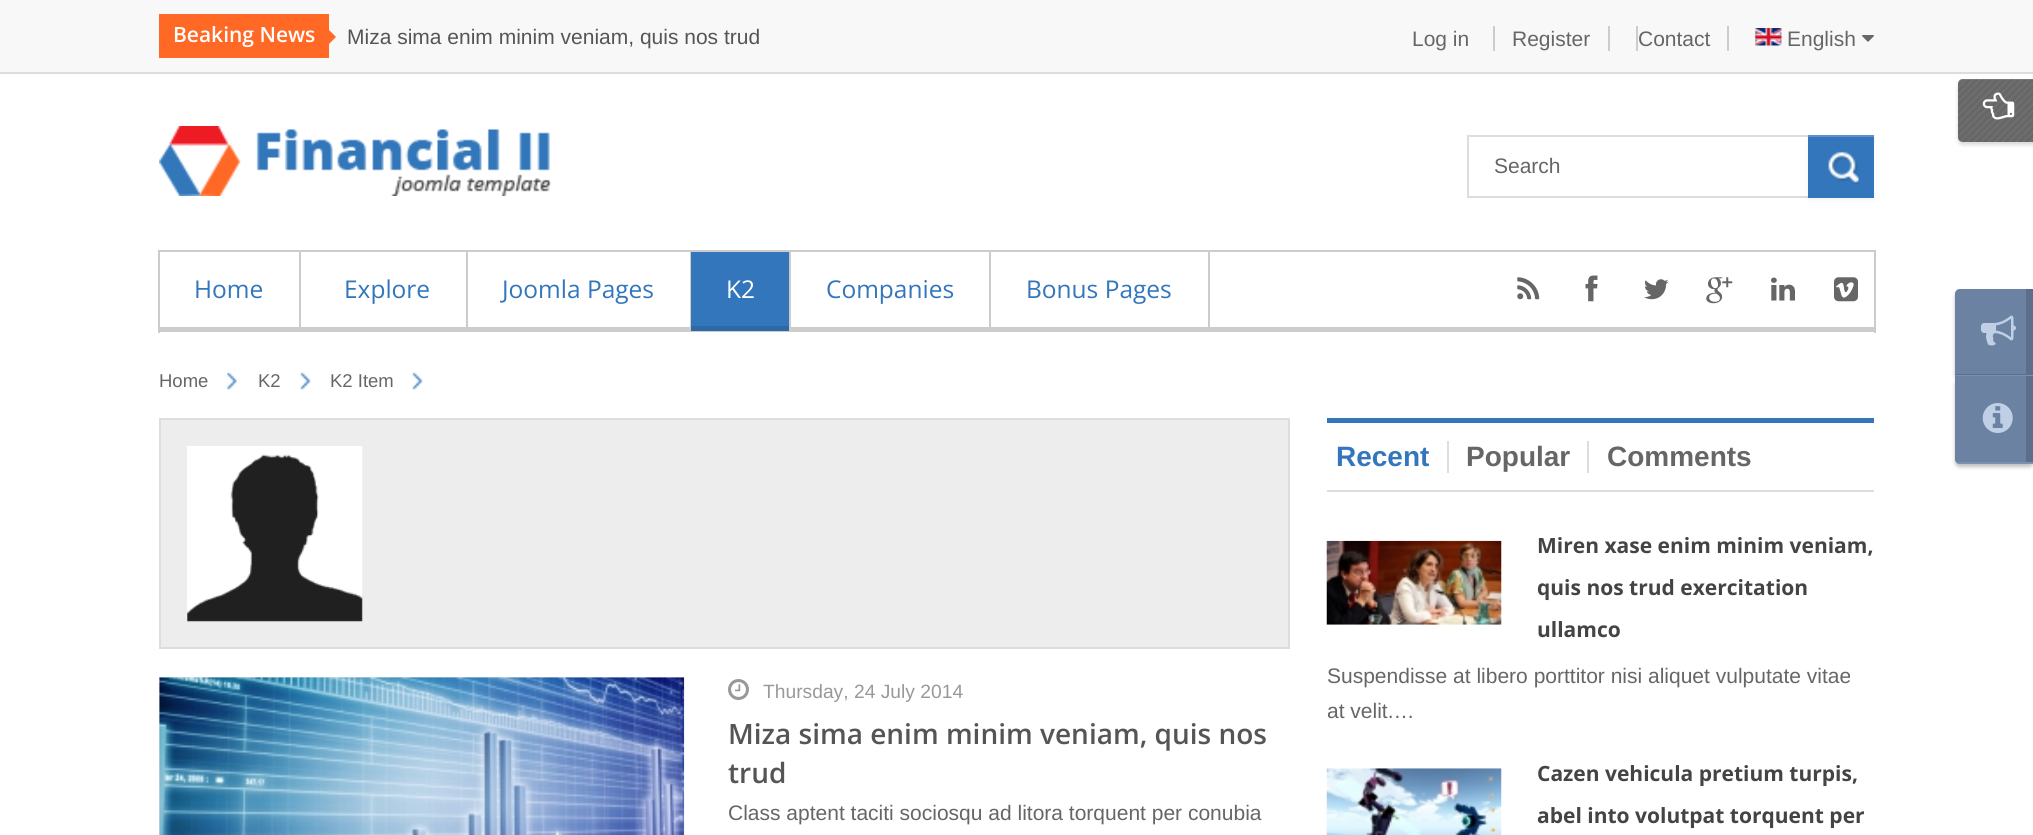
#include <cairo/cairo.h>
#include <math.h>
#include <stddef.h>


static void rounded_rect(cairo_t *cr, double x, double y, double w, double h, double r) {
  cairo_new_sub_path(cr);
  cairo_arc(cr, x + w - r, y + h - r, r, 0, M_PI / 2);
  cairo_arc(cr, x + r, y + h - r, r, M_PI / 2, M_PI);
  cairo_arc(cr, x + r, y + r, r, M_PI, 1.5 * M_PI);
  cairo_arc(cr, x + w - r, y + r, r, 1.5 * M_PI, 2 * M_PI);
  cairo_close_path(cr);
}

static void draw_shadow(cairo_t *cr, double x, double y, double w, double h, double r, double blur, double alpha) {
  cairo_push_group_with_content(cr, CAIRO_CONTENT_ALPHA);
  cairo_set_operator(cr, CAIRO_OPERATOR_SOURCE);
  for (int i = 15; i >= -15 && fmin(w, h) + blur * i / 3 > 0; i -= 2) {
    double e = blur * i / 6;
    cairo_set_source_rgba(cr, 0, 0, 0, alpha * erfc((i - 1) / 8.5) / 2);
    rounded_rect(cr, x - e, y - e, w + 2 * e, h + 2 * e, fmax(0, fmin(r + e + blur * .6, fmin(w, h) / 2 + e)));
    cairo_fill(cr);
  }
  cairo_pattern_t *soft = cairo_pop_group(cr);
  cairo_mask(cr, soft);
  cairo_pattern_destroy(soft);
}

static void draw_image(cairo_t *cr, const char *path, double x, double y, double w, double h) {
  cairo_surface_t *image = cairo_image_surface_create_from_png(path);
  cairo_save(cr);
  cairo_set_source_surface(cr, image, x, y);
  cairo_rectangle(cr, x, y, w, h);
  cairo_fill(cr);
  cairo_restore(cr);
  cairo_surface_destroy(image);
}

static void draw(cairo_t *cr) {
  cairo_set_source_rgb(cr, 1, 1, 1);
  cairo_paint(cr);
  cairo_set_source_rgb(cr, 248 / 255.0, 248 / 255.0, 248 / 255.0);
  cairo_rectangle(cr, 0, 0, 2033, 72);
  cairo_fill(cr);
  cairo_set_source_rgb(cr, 221 / 255.0, 221 / 255.0, 221 / 255.0);
  cairo_rectangle(cr, 0, 72, 2033, 2);
  cairo_fill(cr);
  cairo_set_source_rgb(cr, 1, 104 / 255.0, 37 / 255.0);
  cairo_rectangle(cr, 159, 14, 170, 44);
  cairo_fill(cr);
  cairo_new_path(cr);
  cairo_move_to(cr, 329, 44);
  cairo_line_to(cr, 329, 30);
  cairo_line_to(cr, 336, 37);
  cairo_close_path(cr);
  cairo_fill(cr);
  cairo_set_source_rgb(cr, 204 / 255.0, 204 / 255.0, 204 / 255.0);
  cairo_rectangle(cr, 1493, 26, 2, 25);
  cairo_fill(cr);
  cairo_rectangle(cr, 1608, 26, 2, 25);
  cairo_fill(cr);
  cairo_rectangle(cr, 1727, 26, 2, 25);
  cairo_fill(cr);
  cairo_rectangle(cr, 1636, 26, 2, 25);
  cairo_fill(cr);
  draw_image(cr, "images/1.png", 1755, 28, 27, 18);
  draw_image(cr, "images/2.png", 1862, 35, 12, 7);
  cairo_set_source_rgb(cr, 0, 0, 0);
  draw_shadow(cr, 1958, 82, 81, 63, 5, 2, 0.15);
  cairo_set_source_rgb(cr, 102 / 255.0, 102 / 255.0, 102 / 255.0);
  cairo_new_path(cr);
  cairo_move_to(cr, 1963, 79);
  cairo_line_to(cr, 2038, 79);
  cairo_line_to(cr, 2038, 142);
  cairo_line_to(cr, 1963, 142);
  cairo_curve_to(cr, 1960, 142, 1958, 140, 1958, 137);
  cairo_line_to(cr, 1958, 84);
  cairo_curve_to(cr, 1958, 81, 1960, 79, 1963, 79);
  cairo_close_path(cr);
  cairo_fill(cr);
  draw_image(cr, "images/3.png", 1958, 79, 75, 63);
  cairo_set_source_rgba(cr, 1, 1, 1, 0.1);
  cairo_new_path(cr);
  cairo_move_to(cr, 1964, 80);
  cairo_line_to(cr, 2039, 80);
  cairo_line_to(cr, 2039, 79);
  cairo_line_to(cr, 1963, 79);
  cairo_curve_to(cr, 1960, 79, 1958, 81, 1958, 84);
  cairo_line_to(cr, 1958, 86);
  cairo_curve_to(cr, 1958, 83, 1961, 80, 1964, 80);
  cairo_close_path(cr);
  cairo_fill(cr);
  draw_image(cr, "images/4.png", 1982, 92, 33, 28);
  draw_image(cr, "images/5.png", 159, 126, 393, 70);
  cairo_rectangle(cr, 1468, 136, 405, 61);
  cairo_set_source_rgb(cr, 221 / 255.0, 221 / 255.0, 221 / 255.0);
  cairo_stroke(cr);
  cairo_set_source_rgb(cr, 0, 0, 0);
  draw_shadow(cr, 1808, 137, 66, 63, 0, 2, 0.05);
  cairo_set_source_rgb(cr, 51 / 255.0, 118 / 255.0, 188 / 255.0);
  cairo_rectangle(cr, 1808, 137, 66, 61);
  cairo_fill(cr);
  cairo_set_source_rgb(cr, 92 / 255.0, 145 / 255.0, 201 / 255.0);
  cairo_rectangle(cr, 1808, 135, 66, 2);
  cairo_fill(cr);
  draw_image(cr, "images/6.png", 1828, 151, 31, 33);
  cairo_set_source_rgb(cr, 204 / 255.0, 204 / 255.0, 204 / 255.0);
  cairo_rectangle(cr, 158, 250, 1718, 2);
  cairo_fill(cr);
  cairo_rectangle(cr, 1874, 250, 2, 83);
  cairo_fill(cr);
  cairo_rectangle(cr, 158, 327, 1718, 5);
  cairo_fill(cr);
  cairo_rectangle(cr, 158, 250, 2, 83);
  cairo_fill(cr);
  cairo_rectangle(cr, 299, 252, 2, 79);
  cairo_fill(cr);
  cairo_rectangle(cr, 466, 252, 2, 79);
  cairo_fill(cr);
  cairo_rectangle(cr, 690, 252, 1, 79);
  cairo_fill(cr);
  cairo_set_source_rgb(cr, 51 / 255.0, 118 / 255.0, 188 / 255.0);
  cairo_rectangle(cr, 691, 252, 98, 74);
  cairo_fill(cr);
  cairo_set_source_rgb(cr, 204 / 255.0, 204 / 255.0, 204 / 255.0);
  cairo_rectangle(cr, 789, 252, 2, 79);
  cairo_fill(cr);
  cairo_set_source_rgb(cr, 45 / 255.0, 105 / 255.0, 165 / 255.0);
  cairo_rectangle(cr, 691, 326, 98, 5);
  cairo_fill(cr);
  cairo_set_source_rgb(cr, 204 / 255.0, 204 / 255.0, 204 / 255.0);
  cairo_rectangle(cr, 989, 252, 2, 79);
  cairo_fill(cr);
  cairo_rectangle(cr, 1208, 252, 2, 79);
  cairo_fill(cr);
  draw_image(cr, "images/7.png", 1517, 277, 23, 23);
  draw_image(cr, "images/8.png", 1585, 275, 13, 27);
  draw_image(cr, "images/9.png", 1644, 279, 25, 21);
  draw_image(cr, "images/10.png", 1706, 277, 27, 27);
  draw_image(cr, "images/11.png", 1771, 277, 24, 24);
  draw_image(cr, "images/12.png", 1834, 277, 24, 25);
  cairo_set_source_rgb(cr, 0, 0, 0);
  draw_shadow(cr, 1955, 292, 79, 88, 5, 2, 0.25);
  cairo_set_source_rgb(cr, 107 / 255.0, 130 / 255.0, 162 / 255.0);
  cairo_new_path(cr);
  cairo_move_to(cr, 1960, 289);
  cairo_line_to(cr, 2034, 289);
  cairo_line_to(cr, 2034, 376);
  cairo_line_to(cr, 1955, 376);
  cairo_line_to(cr, 1955, 294);
  cairo_curve_to(cr, 1955, 291, 1957, 289, 1960, 289);
  cairo_close_path(cr);
  cairo_fill(cr);
  cairo_set_source_rgb(cr, 91 / 255.0, 111 / 255.0, 138 / 255.0);
  cairo_new_path(cr);
  cairo_move_to(cr, 1955, 374);
  cairo_line_to(cr, 1955, 375);
  cairo_line_to(cr, 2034, 375);
  cairo_line_to(cr, 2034, 289);
  cairo_line_to(cr, 2026, 289);
  cairo_line_to(cr, 2026, 374);
  cairo_close_path(cr);
  cairo_fill(cr);
  cairo_set_source_rgb(cr, 124 / 255.0, 145 / 255.0, 174 / 255.0);
  cairo_rectangle(cr, 1955, 375, 78, 1);
  cairo_fill(cr);
  draw_image(cr, "images/13.png", 1981, 315, 35, 31);
  cairo_set_source_rgb(cr, 0, 0, 0);
  draw_shadow(cr, 1955, 380, 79, 87, 5, 2, 0.25);
  cairo_set_source_rgb(cr, 107 / 255.0, 130 / 255.0, 162 / 255.0);
  cairo_new_path(cr);
  cairo_move_to(cr, 1955, 376);
  cairo_line_to(cr, 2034, 376);
  cairo_line_to(cr, 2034, 464);
  cairo_line_to(cr, 1960, 464);
  cairo_curve_to(cr, 1957, 464, 1955, 462, 1955, 459);
  cairo_close_path(cr);
  cairo_fill(cr);
  cairo_set_source_rgb(cr, 91 / 255.0, 111 / 255.0, 138 / 255.0);
  cairo_rectangle(cr, 2026, 376, 7, 86);
  cairo_fill(cr);
  cairo_set_source_rgb(cr, 124 / 255.0, 145 / 255.0, 174 / 255.0);
  cairo_rectangle(cr, 1958, 462, 75, 2);
  cairo_fill(cr);
  draw_image(cr, "images/14.png", 1982, 403, 31, 30);
  draw_image(cr, "images/15.png", 227, 372, 10, 18);
  draw_image(cr, "images/16.png", 300, 372, 11, 18);
  draw_image(cr, "images/16.png", 412, 372, 11, 18);
  cairo_set_source_rgb(cr, 237 / 255.0, 237 / 255.0, 237 / 255.0);
  cairo_rectangle(cr, 160, 419, 1129, 229);
  cairo_fill_preserve(cr);
  cairo_set_source_rgb(cr, 221 / 255.0, 221 / 255.0, 221 / 255.0);
  cairo_stroke(cr);
  cairo_set_source_rgb(cr, 1, 1, 1);
  cairo_rectangle(cr, 187, 446, 175, 175);
  cairo_fill(cr);
  draw_image(cr, "images/17.png", 187, 447, 176, 175);
  cairo_set_source_rgb(cr, 230 / 255.0, 230 / 255.0, 230 / 255.0);
  cairo_rectangle(cr, 159, 677, 525, 158);
  cairo_fill(cr);
  draw_image(cr, "images/18.png", 159, 677, 526, 158);
  draw_image(cr, "images/19.png", 728, 679, 21, 21);
  cairo_set_source_rgb(cr, 51 / 255.0, 118 / 255.0, 188 / 255.0);
  cairo_rectangle(cr, 1327, 418, 547, 5);
  cairo_fill(cr);
  cairo_set_source_rgb(cr, 221 / 255.0, 221 / 255.0, 221 / 255.0);
  cairo_rectangle(cr, 1327, 490, 547, 2);
  cairo_fill(cr);
  cairo_rectangle(cr, 1447, 441, 2, 32);
  cairo_fill(cr);
  cairo_rectangle(cr, 1587, 441, 2, 32);
  cairo_fill(cr);
  draw_image(cr, "images/20.png", 1326, 540, 176, 85);
  draw_image(cr, "images/21.png", 1326, 768, 176, 67);
  cairo_select_font_face(cr, "Open Sans SemiBold", CAIRO_FONT_SLANT_NORMAL, CAIRO_FONT_WEIGHT_NORMAL);
  cairo_set_font_size(cr, 21);
  cairo_set_source_rgb(cr, 1, 1, 1);
  cairo_move_to(cr, 173, 42);
  cairo_show_text(cr, "Beaking News");
  cairo_select_font_face(cr, "Liberation Sans", CAIRO_FONT_SLANT_NORMAL, CAIRO_FONT_WEIGHT_NORMAL);
  cairo_set_source_rgb(cr, 85 / 255.0, 85 / 255.0, 85 / 255.0);
  cairo_move_to(cr, 347, 44);
  cairo_show_text(cr, "Miza sima enim minim veniam, quis nos trud");
  cairo_set_source_rgb(cr, 102 / 255.0, 102 / 255.0, 102 / 255.0);
  cairo_move_to(cr, 1412, 46);
  cairo_show_text(cr, "Log in");
  cairo_move_to(cr, 1512, 46);
  cairo_show_text(cr, "Register");
  cairo_move_to(cr, 1638, 46);
  cairo_show_text(cr, "Contact");
  cairo_move_to(cr, 1787, 46);
  cairo_show_text(cr, "English");
  cairo_move_to(cr, 1494, 173);
  cairo_show_text(cr, "Search");
  cairo_select_font_face(cr, "Open Sans", CAIRO_FONT_SLANT_NORMAL, CAIRO_FONT_WEIGHT_NORMAL);
  cairo_set_font_size(cr, 24.5);
  cairo_set_source_rgb(cr, 51 / 255.0, 118 / 255.0, 188 / 255.0);
  cairo_move_to(cr, 194, 298);
  cairo_show_text(cr, "Home");
  cairo_move_to(cr, 344, 298);
  cairo_show_text(cr, "Explore");
  cairo_move_to(cr, 502, 298);
  cairo_show_text(cr, "Joomla Pages");
  cairo_set_source_rgb(cr, 1, 1, 1);
  cairo_move_to(cr, 726, 298);
  cairo_show_text(cr, "K2");
  cairo_set_source_rgb(cr, 51 / 255.0, 118 / 255.0, 188 / 255.0);
  cairo_move_to(cr, 826, 298);
  cairo_show_text(cr, "Companies");
  cairo_move_to(cr, 1026, 298);
  cairo_show_text(cr, "Bonus Pages");
  cairo_select_font_face(cr, "Liberation Sans", CAIRO_FONT_SLANT_NORMAL, CAIRO_FONT_WEIGHT_NORMAL);
  cairo_set_font_size(cr, 18.5);
  cairo_set_source_rgb(cr, 102 / 255.0, 102 / 255.0, 102 / 255.0);
  cairo_move_to(cr, 159, 387);
  cairo_show_text(cr, "Home");
  cairo_move_to(cr, 258, 387);
  cairo_show_text(cr, "K2");
  cairo_move_to(cr, 330, 387);
  cairo_show_text(cr, "K2 Item");
  cairo_set_font_size(cr, 19.25);
  cairo_set_source_rgb(cr, 153 / 255.0, 153 / 255.0, 153 / 255.0);
  cairo_move_to(cr, 763, 698);
  cairo_show_text(cr, "Thursday, 24 July 2014");
  cairo_select_font_face(cr, "Open Sans SemiBold", CAIRO_FONT_SLANT_NORMAL, CAIRO_FONT_WEIGHT_NORMAL);
  cairo_set_font_size(cr, 28);
  cairo_set_source_rgb(cr, 85 / 255.0, 85 / 255.0, 85 / 255.0);
  cairo_move_to(cr, 728, 744);
  cairo_show_text(cr, "Miza sima enim minim veniam, quis nos");
  cairo_move_to(cr, 728, 783);
  cairo_show_text(cr, "trud");
  cairo_select_font_face(cr, "Liberation Sans", CAIRO_FONT_SLANT_NORMAL, CAIRO_FONT_WEIGHT_NORMAL);
  cairo_set_font_size(cr, 21);
  cairo_set_source_rgb(cr, 102 / 255.0, 102 / 255.0, 102 / 255.0);
  cairo_move_to(cr, 728, 820);
  cairo_show_text(cr, "Class aptent taciti sociosqu ad litora torquent per conubia");
  cairo_select_font_face(cr, "Liberation Sans", CAIRO_FONT_SLANT_NORMAL, CAIRO_FONT_WEIGHT_BOLD);
  cairo_set_font_size(cr, 28);
  cairo_set_source_rgb(cr, 51 / 255.0, 118 / 255.0, 188 / 255.0);
  cairo_move_to(cr, 1336, 466);
  cairo_show_text(cr, "Recent");
  cairo_set_source_rgb(cr, 102 / 255.0, 102 / 255.0, 102 / 255.0);
  cairo_move_to(cr, 1466, 466);
  cairo_show_text(cr, "Popular");
  cairo_move_to(cr, 1607, 466);
  cairo_show_text(cr, "Comments");
  cairo_select_font_face(cr, "Open Sans", CAIRO_FONT_SLANT_NORMAL, CAIRO_FONT_WEIGHT_BOLD);
  cairo_set_font_size(cr, 21);
  cairo_set_source_rgb(cr, 68 / 255.0, 68 / 255.0, 68 / 255.0);
  cairo_move_to(cr, 1537, 553);
  cairo_show_text(cr, "Miren xase enim minim veniam,");
  cairo_move_to(cr, 1537, 595);
  cairo_show_text(cr, "quis nos trud exercitation");
  cairo_move_to(cr, 1537, 637);
  cairo_show_text(cr, "ullamco");
  cairo_select_font_face(cr, "Liberation Sans", CAIRO_FONT_SLANT_NORMAL, CAIRO_FONT_WEIGHT_NORMAL);
  cairo_set_source_rgb(cr, 102 / 255.0, 102 / 255.0, 102 / 255.0);
  cairo_move_to(cr, 1327, 683);
  cairo_show_text(cr, "Suspendisse at libero porttitor nisi aliquet vulputate vitae");
  cairo_move_to(cr, 1327, 718);
  cairo_show_text(cr, "at velit.…");
  cairo_select_font_face(cr, "Open Sans", CAIRO_FONT_SLANT_NORMAL, CAIRO_FONT_WEIGHT_BOLD);
  cairo_set_source_rgb(cr, 68 / 255.0, 68 / 255.0, 68 / 255.0);
  cairo_move_to(cr, 1537, 781);
  cairo_show_text(cr, "Cazen vehicula pretium turpis,");
  cairo_move_to(cr, 1537, 823);
  cairo_show_text(cr, "abel into volutpat torquent per");
}

int main(void) {
  cairo_surface_t *surface = cairo_image_surface_create(CAIRO_FORMAT_RGB24, 2033, 835);
  cairo_t *cr = cairo_create(surface);
  cairo_font_options_t *options = cairo_font_options_create();
  cairo_font_options_set_hint_metrics(options, CAIRO_HINT_METRICS_OFF);
  cairo_font_options_set_hint_style(options, CAIRO_HINT_STYLE_NONE);
  cairo_set_font_options(cr, options);
  cairo_set_miter_limit(cr, 4);
  draw(cr);
  cairo_surface_write_to_png(surface, "out.png");
  cairo_font_options_destroy(options);
  cairo_destroy(cr);
  cairo_surface_destroy(surface);
  return 0;
}
